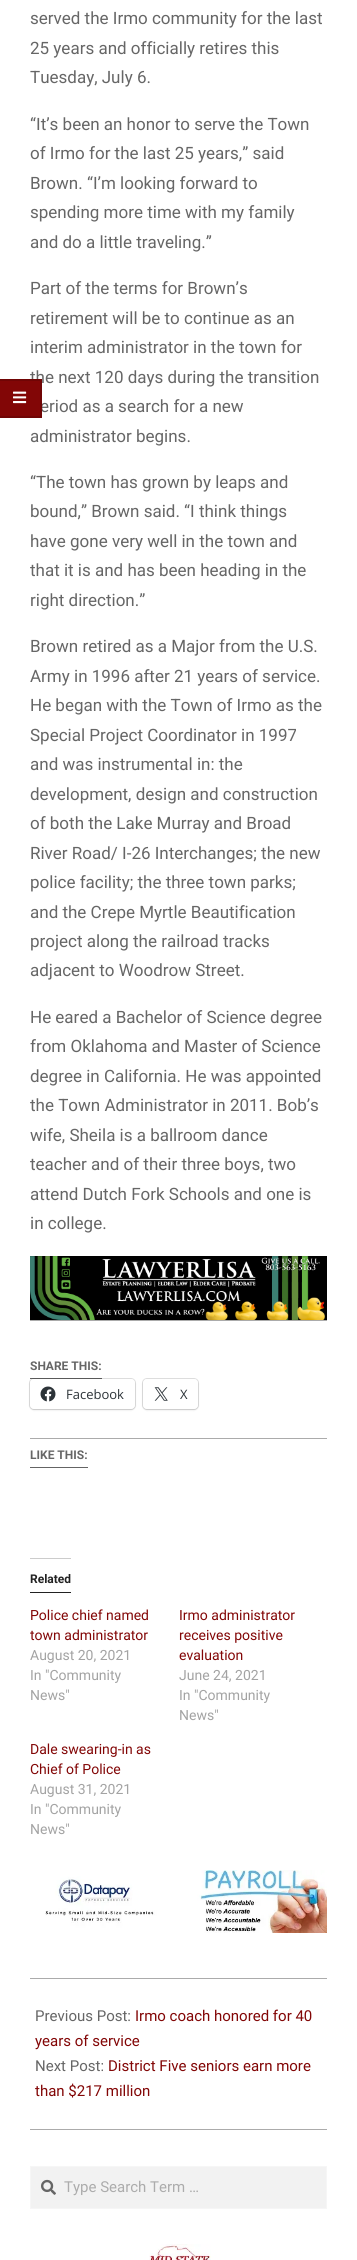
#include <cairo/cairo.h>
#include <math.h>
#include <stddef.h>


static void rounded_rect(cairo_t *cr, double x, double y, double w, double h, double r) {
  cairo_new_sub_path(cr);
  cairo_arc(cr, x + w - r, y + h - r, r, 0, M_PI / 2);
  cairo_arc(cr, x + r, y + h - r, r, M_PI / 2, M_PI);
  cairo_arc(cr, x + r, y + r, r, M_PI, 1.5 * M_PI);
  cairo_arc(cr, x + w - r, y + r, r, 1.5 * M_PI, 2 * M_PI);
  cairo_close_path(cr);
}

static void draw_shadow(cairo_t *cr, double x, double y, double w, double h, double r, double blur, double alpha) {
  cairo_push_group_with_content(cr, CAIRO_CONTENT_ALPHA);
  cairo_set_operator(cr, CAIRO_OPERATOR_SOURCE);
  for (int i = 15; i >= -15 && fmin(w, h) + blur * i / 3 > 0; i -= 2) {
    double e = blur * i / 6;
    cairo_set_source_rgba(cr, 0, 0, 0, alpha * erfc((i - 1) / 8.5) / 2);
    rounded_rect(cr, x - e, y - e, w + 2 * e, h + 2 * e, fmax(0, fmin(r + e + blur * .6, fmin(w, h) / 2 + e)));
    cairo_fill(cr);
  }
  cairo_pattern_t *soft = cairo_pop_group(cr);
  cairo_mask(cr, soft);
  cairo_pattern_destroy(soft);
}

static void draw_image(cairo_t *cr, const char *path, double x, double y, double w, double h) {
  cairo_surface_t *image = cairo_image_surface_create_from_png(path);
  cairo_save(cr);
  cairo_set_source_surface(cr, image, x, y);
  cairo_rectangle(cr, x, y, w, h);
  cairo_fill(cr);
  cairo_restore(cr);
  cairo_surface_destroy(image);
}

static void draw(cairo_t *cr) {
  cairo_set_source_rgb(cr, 1, 1, 1);
  cairo_paint(cr);
  cairo_set_source_rgb(cr, 171 / 255.0, 171 / 255.0, 171 / 255.0);
  cairo_rectangle(cr, 30, 1978, 297, 1);
  cairo_fill(cr);
  draw_image(cr, "images/2.png", 30, 1256, 297, 64);
  cairo_rectangle(cr, 30, 1320, 297, 1);
  cairo_fill(cr);
  rounded_rect(cr, 29.5, 1378.5, 106, 31, 4.5);
  cairo_set_source_rgb(cr, 224 / 255.0, 224 / 255.0, 224 / 255.0);
  cairo_set_line_width(cr, 1);
  cairo_stroke(cr);
  cairo_set_source_rgb(cr, 0, 0, 0);
  draw_shadow(cr, 30, 1380, 105, 30, 4, 1, 0.12);
  cairo_set_source_rgba(cr, 34 / 255.0, 34 / 255.0, 34 / 255.0, 0.7);
  cairo_rectangle(cr, 30, 1378, 72, 1);
  cairo_fill(cr);
  cairo_set_source_rgb(cr, 1, 1, 1);
  rounded_rect(cr, 30, 1379, 105, 30, 4);
  cairo_fill(cr);
  draw_image(cr, "images/3.png", 40, 1386, 16, 16);
  rounded_rect(cr, 142.5, 1378.5, 56, 31, 4.5);
  cairo_set_source_rgb(cr, 224 / 255.0, 224 / 255.0, 224 / 255.0);
  cairo_stroke(cr);
  cairo_set_source_rgb(cr, 0, 0, 0);
  draw_shadow(cr, 143, 1380, 55, 30, 4, 1, 0.12);
  cairo_set_source_rgb(cr, 1, 1, 1);
  rounded_rect(cr, 143, 1379, 55, 30, 4);
  cairo_fill(cr);
  draw_image(cr, "images/4.png", 154, 1387, 14, 14);
  cairo_set_source_rgb(cr, 171 / 255.0, 171 / 255.0, 171 / 255.0);
  cairo_rectangle(cr, 30, 1438, 297, 1);
  cairo_fill(cr);
  cairo_set_source_rgb(cr, 100 / 255.0, 100 / 255.0, 100 / 255.0);
  cairo_rectangle(cr, 30, 1467, 58, 1);
  cairo_fill(cr);
  cairo_set_source_rgb(cr, 34 / 255.0, 34 / 255.0, 34 / 255.0);
  cairo_rectangle(cr, 30, 1592, 41, 1);
  cairo_fill(cr);
  cairo_set_source_rgb(cr, 204 / 255.0, 204 / 255.0, 204 / 255.0);
  cairo_rectangle(cr, 30, 1558, 41, 1);
  cairo_fill(cr);
  draw_image(cr, "images/5.png", 45, 1870, 282, 63);
  cairo_set_source_rgb(cr, 171 / 255.0, 171 / 255.0, 171 / 255.0);
  cairo_rectangle(cr, 30, 2129, 297, 1);
  cairo_fill(cr);
  cairo_set_source_rgb(cr, 242 / 255.0, 242 / 255.0, 242 / 255.0);
  cairo_rectangle(cr, 30.5, 2166.5, 296, 42);
  cairo_fill_preserve(cr);
  cairo_set_source_rgb(cr, 246 / 255.0, 246 / 255.0, 246 / 255.0);
  cairo_stroke(cr);
  draw_image(cr, "images/6.png", 41, 2179, 15, 16);
  draw_image(cr, "images/7.png", 149, 2244, 62, 16);
  cairo_select_font_face(cr, "Roboto", CAIRO_FONT_SLANT_NORMAL, CAIRO_FONT_WEIGHT_NORMAL);
  cairo_set_font_size(cr, 17);
  cairo_set_source_rgb(cr, 102 / 255.0, 102 / 255.0, 102 / 255.0);
  cairo_move_to(cr, 30, 24);
  cairo_show_text(cr, "served the Irmo community for the last");
  cairo_move_to(cr, 30, 54);
  cairo_show_text(cr, "25 years and officially retires this");
  cairo_move_to(cr, 30, 83);
  cairo_show_text(cr, "Tuesday, July 6.");
  cairo_move_to(cr, 30, 130);
  cairo_show_text(cr, "“It’s been an honor to serve the Town");
  cairo_move_to(cr, 30, 159);
  cairo_show_text(cr, "of Irmo for the last 25 years,” said");
  cairo_move_to(cr, 30, 189);
  cairo_show_text(cr, "Brown. “I’m looking forward to");
  cairo_move_to(cr, 30, 218);
  cairo_show_text(cr, "spending more time with my family");
  cairo_move_to(cr, 30, 248);
  cairo_show_text(cr, "and do a little traveling.”");
  cairo_move_to(cr, 30, 294);
  cairo_show_text(cr, "Part of the terms for Brown’s");
  cairo_move_to(cr, 30, 324);
  cairo_show_text(cr, "retirement will be to continue as an");
  cairo_move_to(cr, 30, 353);
  cairo_show_text(cr, "interim administrator in the town for");
  cairo_move_to(cr, 30, 383);
  cairo_show_text(cr, "the next 120 days during the transition");
  cairo_move_to(cr, 40, 412);
  cairo_show_text(cr, "eriod as a search for a new");
  cairo_set_source_rgb(cr, 130 / 255.0, 6 / 255.0, 6 / 255.0);
  cairo_rectangle(cr, 0, 379, 42, 39);
  cairo_fill(cr);
  draw_image(cr, "images/1.png", 13, 391, 14, 13);
  cairo_set_source_rgb(cr, 112 / 255.0, 5 / 255.0, 5 / 255.0);
  cairo_new_path(cr);
  cairo_move_to(cr, 0, 379);
  cairo_line_to(cr, 42, 379);
  cairo_line_to(cr, 40, 381);
  cairo_line_to(cr, 0, 381);
  cairo_close_path(cr);
  cairo_fill(cr);
  cairo_set_source_rgba(cr, 0, 0, 0, 0.14);
  cairo_new_path(cr);
  cairo_move_to(cr, 42, 379);
  cairo_line_to(cr, 42, 418);
  cairo_line_to(cr, 40, 416);
  cairo_line_to(cr, 40, 381);
  cairo_close_path(cr);
  cairo_fill(cr);
  cairo_new_path(cr);
  cairo_move_to(cr, 42, 418);
  cairo_line_to(cr, 0, 418);
  cairo_line_to(cr, 0, 416);
  cairo_line_to(cr, 40, 416);
  cairo_close_path(cr);
  cairo_fill(cr);
  cairo_set_source_rgb(cr, 102 / 255.0, 102 / 255.0, 102 / 255.0);
  cairo_move_to(cr, 30, 442);
  cairo_show_text(cr, "administrator begins.");
  cairo_move_to(cr, 30, 488);
  cairo_show_text(cr, "“The town has grown by leaps and");
  cairo_move_to(cr, 30, 517);
  cairo_show_text(cr, "bound,” Brown said. “I think things");
  cairo_move_to(cr, 30, 547);
  cairo_show_text(cr, "have gone very well in the town and");
  cairo_move_to(cr, 30, 576);
  cairo_show_text(cr, "that it is and has been heading in the");
  cairo_move_to(cr, 30, 606);
  cairo_show_text(cr, "right direction.”");
  cairo_move_to(cr, 30, 652);
  cairo_show_text(cr, "Brown retired as a Major from the U.S.");
  cairo_move_to(cr, 30, 682);
  cairo_show_text(cr, "Army in 1996 after 21 years of service.");
  cairo_move_to(cr, 30, 711);
  cairo_show_text(cr, "He began with the Town of Irmo as the");
  cairo_move_to(cr, 30, 741);
  cairo_show_text(cr, "Special Project Coordinator in 1997");
  cairo_move_to(cr, 30, 770);
  cairo_show_text(cr, "and was instrumental in: the");
  cairo_move_to(cr, 30, 800);
  cairo_show_text(cr, "development, design and construction");
  cairo_move_to(cr, 30, 829);
  cairo_show_text(cr, "of both the Lake Murray and Broad");
  cairo_move_to(cr, 30, 859);
  cairo_show_text(cr, "River Road/ I-26 Interchanges; the new");
  cairo_move_to(cr, 30, 888);
  cairo_show_text(cr, "police facility; the three town parks;");
  cairo_move_to(cr, 30, 918);
  cairo_show_text(cr, "and the Crepe Myrtle Beautification");
  cairo_move_to(cr, 30, 947);
  cairo_show_text(cr, "project along the railroad tracks");
  cairo_move_to(cr, 30, 976);
  cairo_show_text(cr, "adjacent to Woodrow Street.");
  cairo_move_to(cr, 30, 1023);
  cairo_show_text(cr, "He eared a Bachelor of Science degree");
  cairo_move_to(cr, 30, 1052);
  cairo_show_text(cr, "from Oklahoma and Master of Science");
  cairo_move_to(cr, 30, 1082);
  cairo_show_text(cr, "degree in California. He was appointed");
  cairo_move_to(cr, 30, 1111);
  cairo_show_text(cr, "the Town Administrator in 2011. Bob’s");
  cairo_move_to(cr, 30, 1141);
  cairo_show_text(cr, "wife, Sheila is a ballroom dance");
  cairo_move_to(cr, 30, 1170);
  cairo_show_text(cr, "teacher and of their three boys, two");
  cairo_move_to(cr, 30, 1200);
  cairo_show_text(cr, "attend Dutch Fork Schools and one is");
  cairo_move_to(cr, 30, 1229);
  cairo_show_text(cr, "in college.");
  cairo_select_font_face(cr, "Roboto", CAIRO_FONT_SLANT_NORMAL, CAIRO_FONT_WEIGHT_BOLD);
  cairo_set_font_size(cr, 12);
  cairo_move_to(cr, 30, 1370);
  cairo_show_text(cr, "SHARE THIS:");
  cairo_select_font_face(cr, "Open Sans", CAIRO_FONT_SLANT_NORMAL, CAIRO_FONT_WEIGHT_NORMAL);
  cairo_set_font_size(cr, 13);
  cairo_set_source_rgb(cr, 44 / 255.0, 51 / 255.0, 56 / 255.0);
  cairo_move_to(cr, 66, 1399);
  cairo_show_text(cr, "Facebook");
  cairo_move_to(cr, 180, 1399);
  cairo_show_text(cr, "X");
  cairo_select_font_face(cr, "Roboto", CAIRO_FONT_SLANT_NORMAL, CAIRO_FONT_WEIGHT_BOLD);
  cairo_set_font_size(cr, 12);
  cairo_set_source_rgb(cr, 102 / 255.0, 102 / 255.0, 102 / 255.0);
  cairo_move_to(cr, 30, 1459);
  cairo_show_text(cr, "LIKE THIS:");
  cairo_set_source_rgb(cr, 34 / 255.0, 34 / 255.0, 34 / 255.0);
  cairo_move_to(cr, 30, 1583);
  cairo_show_text(cr, "Related");
  cairo_select_font_face(cr, "Roboto", CAIRO_FONT_SLANT_NORMAL, CAIRO_FONT_WEIGHT_NORMAL);
  cairo_set_font_size(cr, 14);
  cairo_set_source_rgb(cr, 130 / 255.0, 6 / 255.0, 6 / 255.0);
  cairo_move_to(cr, 30, 1620);
  cairo_show_text(cr, "Police chief named");
  cairo_move_to(cr, 30, 1640);
  cairo_show_text(cr, "town administrator");
  cairo_set_source_rgb(cr, 163 / 255.0, 163 / 255.0, 163 / 255.0);
  cairo_move_to(cr, 30, 1660);
  cairo_show_text(cr, "August 20, 2021");
  cairo_move_to(cr, 30, 1680);
  cairo_show_text(cr, "In \"Community");
  cairo_move_to(cr, 30, 1700);
  cairo_show_text(cr, "News\"");
  cairo_set_source_rgb(cr, 130 / 255.0, 6 / 255.0, 6 / 255.0);
  cairo_move_to(cr, 179, 1620);
  cairo_show_text(cr, "Irmo administrator");
  cairo_move_to(cr, 179, 1640);
  cairo_show_text(cr, "receives positive");
  cairo_move_to(cr, 179, 1660);
  cairo_show_text(cr, "evaluation");
  cairo_set_source_rgb(cr, 163 / 255.0, 163 / 255.0, 163 / 255.0);
  cairo_move_to(cr, 179, 1680);
  cairo_show_text(cr, "June 24, 2021");
  cairo_move_to(cr, 179, 1700);
  cairo_show_text(cr, "In \"Community");
  cairo_move_to(cr, 179, 1720);
  cairo_show_text(cr, "News\"");
  cairo_set_source_rgb(cr, 130 / 255.0, 6 / 255.0, 6 / 255.0);
  cairo_move_to(cr, 30, 1754);
  cairo_show_text(cr, "Dale swearing-in as");
  cairo_move_to(cr, 30, 1774);
  cairo_show_text(cr, "Chief of Police");
  cairo_set_source_rgb(cr, 163 / 255.0, 163 / 255.0, 163 / 255.0);
  cairo_move_to(cr, 30, 1794);
  cairo_show_text(cr, "August 31, 2021");
  cairo_move_to(cr, 30, 1814);
  cairo_show_text(cr, "In \"Community");
  cairo_move_to(cr, 30, 1834);
  cairo_show_text(cr, "News\"");
  cairo_set_font_size(cr, 15);
  cairo_set_source_rgb(cr, 102 / 255.0, 102 / 255.0, 102 / 255.0);
  cairo_move_to(cr, 35, 2021);
  cairo_show_text(cr, "Previous Post:");
  cairo_set_source_rgb(cr, 130 / 255.0, 6 / 255.0, 6 / 255.0);
  cairo_move_to(cr, 135, 2021);
  cairo_show_text(cr, "Irmo coach honored for 40");
  cairo_move_to(cr, 35, 2046);
  cairo_show_text(cr, "years of service");
  cairo_set_source_rgb(cr, 102 / 255.0, 102 / 255.0, 102 / 255.0);
  cairo_move_to(cr, 35, 2071);
  cairo_show_text(cr, "Next Post:");
  cairo_set_source_rgb(cr, 130 / 255.0, 6 / 255.0, 6 / 255.0);
  cairo_move_to(cr, 108, 2071);
  cairo_show_text(cr, "District Five seniors earn more");
  cairo_move_to(cr, 35, 2096);
  cairo_show_text(cr, "than $217 million");
  cairo_set_source_rgb(cr, 172 / 255.0, 172 / 255.0, 172 / 255.0);
  cairo_move_to(cr, 64, 2192);
  cairo_show_text(cr, "Type Search Term …");
}

int main(void) {
  cairo_surface_t *surface = cairo_image_surface_create(CAIRO_FORMAT_RGB24, 357, 2260);
  cairo_t *cr = cairo_create(surface);
  cairo_font_options_t *options = cairo_font_options_create();
  cairo_font_options_set_hint_metrics(options, CAIRO_HINT_METRICS_OFF);
  cairo_font_options_set_hint_style(options, CAIRO_HINT_STYLE_NONE);
  cairo_set_font_options(cr, options);
  cairo_set_miter_limit(cr, 4);
  draw(cr);
  cairo_surface_write_to_png(surface, "out.png");
  cairo_font_options_destroy(options);
  cairo_destroy(cr);
  cairo_surface_destroy(surface);
  return 0;
}
